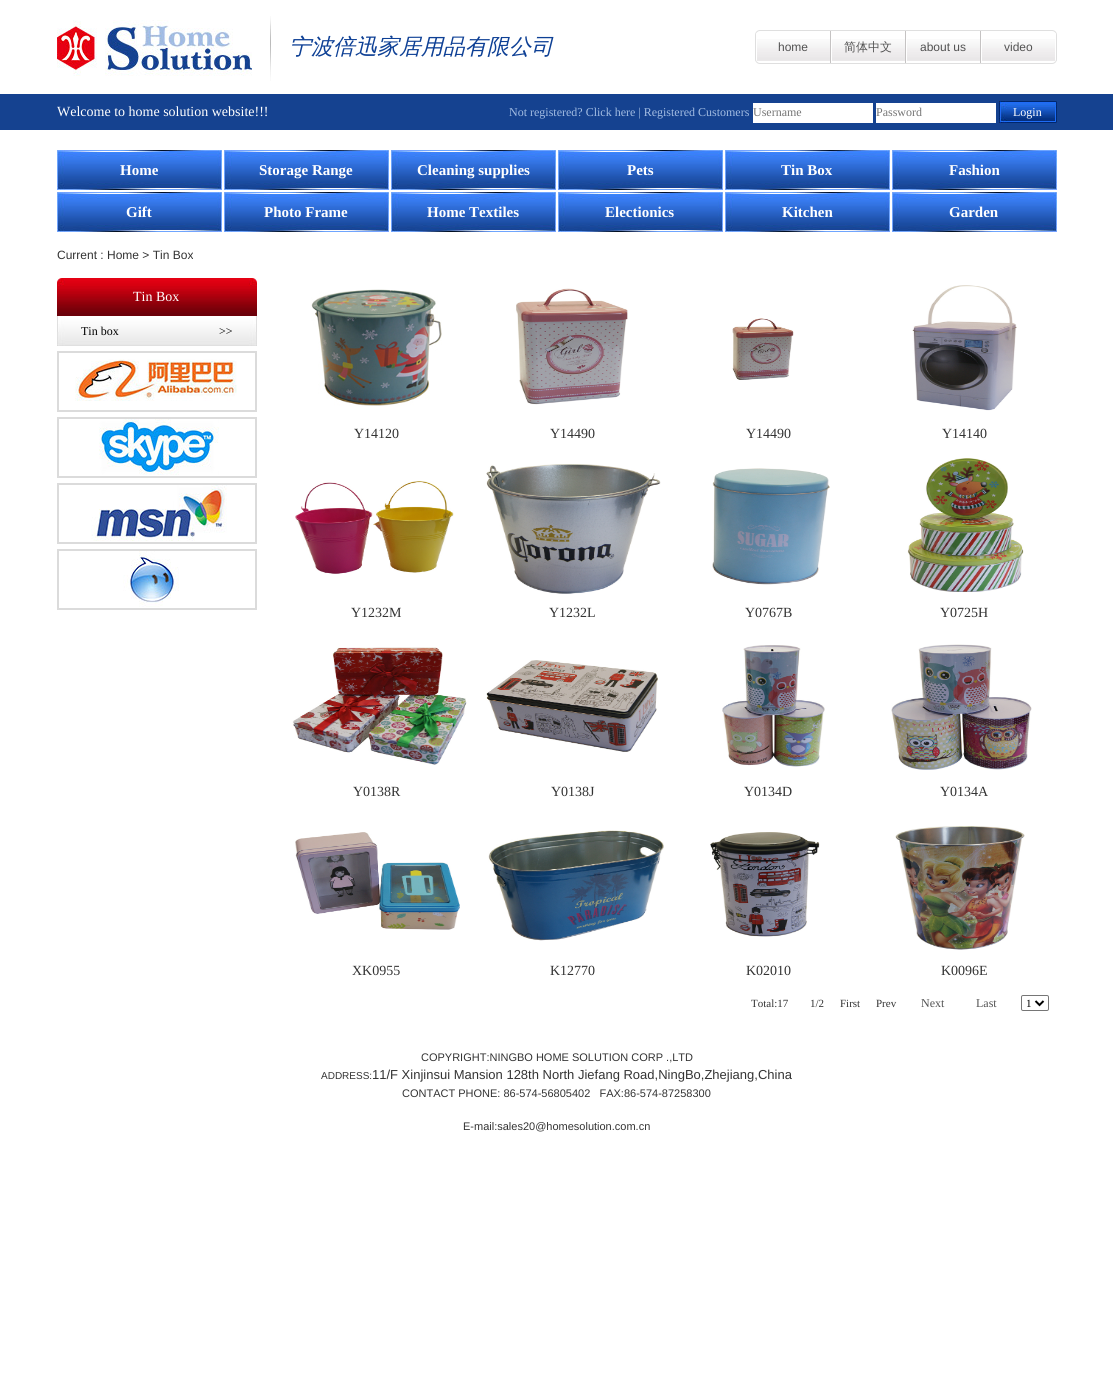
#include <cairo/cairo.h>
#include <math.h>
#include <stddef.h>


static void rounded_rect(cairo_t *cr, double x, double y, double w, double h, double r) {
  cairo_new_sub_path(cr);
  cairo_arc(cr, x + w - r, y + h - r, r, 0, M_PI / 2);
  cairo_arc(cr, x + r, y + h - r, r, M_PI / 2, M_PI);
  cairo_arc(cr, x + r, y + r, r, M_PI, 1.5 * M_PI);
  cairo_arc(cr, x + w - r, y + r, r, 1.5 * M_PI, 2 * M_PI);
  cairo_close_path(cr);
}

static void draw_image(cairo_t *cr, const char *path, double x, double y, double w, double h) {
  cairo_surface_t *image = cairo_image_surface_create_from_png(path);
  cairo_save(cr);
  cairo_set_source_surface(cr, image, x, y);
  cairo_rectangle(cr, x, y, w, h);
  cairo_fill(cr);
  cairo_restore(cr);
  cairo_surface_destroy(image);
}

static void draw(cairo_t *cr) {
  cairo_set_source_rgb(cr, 1, 1, 1);
  cairo_paint(cr);
  draw_image(cr, "images/1.png", 57, 20, 195, 56);
  draw_image(cr, "images/2.png", 270, 16, 1, 65);
  draw_image(cr, "images/3.png", 755, 39, 302, 22);
  rounded_rect(cr, 755.5, 30.5, 301, 33, 4.5);
  cairo_set_source_rgb(cr, 223 / 255.0, 223 / 255.0, 223 / 255.0);
  cairo_set_line_width(cr, 1);
  cairo_stroke(cr);
  cairo_set_source_rgb(cr, 197 / 255.0, 195 / 255.0, 195 / 255.0);
  cairo_rectangle(cr, 830, 31, 1, 32);
  cairo_fill(cr);
  cairo_save(cr);
  rounded_rect(cr, 756, 31, 300, 32, 4);
  cairo_clip(cr);
  cairo_set_source_rgb(cr, 1, 1, 1);
  cairo_rectangle(cr, 756, 31, 1, 32);
  cairo_fill(cr);
  cairo_restore(cr);
  cairo_rectangle(cr, 905, 31, 1, 32);
  cairo_fill(cr);
  cairo_set_source_rgb(cr, 1, 1, 1);
  cairo_rectangle(cr, 831, 31, 1, 32);
  cairo_fill(cr);
  cairo_set_source_rgb(cr, 197 / 255.0, 195 / 255.0, 195 / 255.0);
  cairo_rectangle(cr, 980, 31, 1, 32);
  cairo_fill(cr);
  cairo_set_source_rgb(cr, 1, 1, 1);
  cairo_rectangle(cr, 906, 31, 1, 32);
  cairo_fill(cr);
  cairo_save(cr);
  rounded_rect(cr, 756, 31, 300, 32, 4);
  cairo_clip(cr);
  cairo_rectangle(cr, 1055, 31, 1, 32);
  cairo_fill(cr);
  cairo_restore(cr);
  cairo_rectangle(cr, 981, 31, 1, 32);
  cairo_fill(cr);
  cairo_set_source_rgb(cr, 21 / 255.0, 66 / 255.0, 144 / 255.0);
  cairo_rectangle(cr, 0, 94, 1113, 36);
  cairo_fill(cr);
  cairo_set_source_rgb(cr, 1, 1, 1);
  cairo_rectangle(cr, 753, 103, 120, 20);
  cairo_fill(cr);
  cairo_rectangle(cr, 876, 103, 120, 20);
  cairo_fill(cr);
  draw_image(cr, "images/4.png", 999, 101, 58, 22);
  draw_image(cr, "images/5.png", 57, 150, 165, 40);
  draw_image(cr, "images/5.png", 224, 150, 165, 40);
  draw_image(cr, "images/5.png", 391, 150, 165, 40);
  draw_image(cr, "images/5.png", 558, 150, 165, 40);
  draw_image(cr, "images/5.png", 725, 150, 165, 40);
  draw_image(cr, "images/5.png", 892, 150, 165, 40);
  draw_image(cr, "images/5.png", 57, 192, 165, 40);
  draw_image(cr, "images/5.png", 224, 192, 165, 40);
  draw_image(cr, "images/5.png", 391, 192, 165, 40);
  draw_image(cr, "images/5.png", 558, 192, 165, 40);
  draw_image(cr, "images/5.png", 725, 192, 165, 40);
  draw_image(cr, "images/5.png", 892, 192, 165, 40);
  draw_image(cr, "images/6.png", 57, 278, 200, 38);
  draw_image(cr, "images/7.png", 57, 316, 200, 30);
  cairo_rectangle(cr, 58, 352, 198, 59);
  cairo_set_source_rgb(cr, 219 / 255.0, 219 / 255.0, 219 / 255.0);
  cairo_set_line_width(cr, 2);
  cairo_stroke(cr);
  draw_image(cr, "images/8.png", 75, 359, 162, 42);
  cairo_rectangle(cr, 58, 418, 198, 59);
  cairo_stroke(cr);
  draw_image(cr, "images/9.png", 99, 419, 120, 56);
  cairo_rectangle(cr, 58, 484, 198, 59);
  cairo_stroke(cr);
  draw_image(cr, "images/10.png", 91, 485, 136, 56);
  cairo_rectangle(cr, 58, 550, 198, 59);
  cairo_stroke(cr);
  draw_image(cr, "images/11.png", 123, 551, 56, 56);
  draw_image(cr, "images/12.png", 311, 289, 131, 117);
  draw_image(cr, "images/13.png", 516, 288, 112, 117);
  draw_image(cr, "images/14.png", 732, 318, 62, 62);
  draw_image(cr, "images/15.png", 912, 285, 105, 126);
  draw_image(cr, "images/16.png", 295, 481, 159, 93);
  draw_image(cr, "images/17.png", 486, 464, 175, 130);
  draw_image(cr, "images/18.png", 712, 468, 118, 117);
  draw_image(cr, "images/19.png", 907, 458, 117, 134);
  draw_image(cr, "images/20.png", 292, 647, 175, 118);
  draw_image(cr, "images/21.png", 486, 660, 172, 92);
  draw_image(cr, "images/22.png", 722, 645, 103, 122);
  draw_image(cr, "images/23.png", 891, 644, 141, 126);
  draw_image(cr, "images/24.png", 295, 832, 165, 98);
  draw_image(cr, "images/25.png", 488, 830, 176, 111);
  draw_image(cr, "images/26.png", 710, 832, 110, 105);
  draw_image(cr, "images/27.png", 895, 826, 130, 124);
  rounded_rect(cr, 1021.5, 995.5, 27, 15, 1.5);
  cairo_set_source_rgb(cr, 118 / 255.0, 118 / 255.0, 118 / 255.0);
  cairo_set_line_width(cr, 1);
  cairo_stroke(cr);
  cairo_new_path(cr);
  cairo_move_to(cr, 1035.5, 1001);
  cairo_line_to(cr, 1039.5, 1005);
  cairo_line_to(cr, 1043.5, 1001);
  cairo_set_source_rgb(cr, 0, 0, 0);
  cairo_set_line_width(cr, 2);
  cairo_stroke(cr);
  cairo_select_font_face(cr, "WenQuanYi Zen Hei Medium", CAIRO_FONT_SLANT_ITALIC, CAIRO_FONT_WEIGHT_NORMAL);
  cairo_set_font_size(cr, 22);
  cairo_set_source_rgb(cr, 14 / 255.0, 64 / 255.0, 149 / 255.0);
  cairo_move_to(cr, 289, 54);
  cairo_show_text(cr, "宁波倍迅家居用品有限公司");
  cairo_select_font_face(cr, "Liberation Sans", CAIRO_FONT_SLANT_NORMAL, CAIRO_FONT_WEIGHT_NORMAL);
  cairo_set_font_size(cr, 12);
  cairo_set_source_rgb(cr, 82 / 255.0, 82 / 255.0, 82 / 255.0);
  cairo_move_to(cr, 778, 51);
  cairo_show_text(cr, "home");
  cairo_select_font_face(cr, "WenQuanYi Zen Hei Medium", CAIRO_FONT_SLANT_NORMAL, CAIRO_FONT_WEIGHT_NORMAL);
  cairo_move_to(cr, 844, 51);
  cairo_show_text(cr, "简体中文");
  cairo_select_font_face(cr, "Liberation Sans", CAIRO_FONT_SLANT_NORMAL, CAIRO_FONT_WEIGHT_NORMAL);
  cairo_move_to(cr, 920, 51);
  cairo_show_text(cr, "about us");
  cairo_move_to(cr, 1004, 51);
  cairo_show_text(cr, "video");
  cairo_select_font_face(cr, "Liberation Serif", CAIRO_FONT_SLANT_NORMAL, CAIRO_FONT_WEIGHT_NORMAL);
  cairo_set_font_size(cr, 14);
  cairo_set_source_rgb(cr, 1, 1, 1);
  cairo_move_to(cr, 57, 116);
  cairo_show_text(cr, "Welcome to home solution website!!!");
  cairo_set_font_size(cr, 12);
  cairo_set_source_rgb(cr, 162 / 255.0, 188 / 255.0, 226 / 255.0);
  cairo_move_to(cr, 509, 116);
  cairo_show_text(cr, "Not registered? Click here | Registered Customers");
  cairo_set_source_rgb(cr, 117 / 255.0, 117 / 255.0, 117 / 255.0);
  cairo_move_to(cr, 753, 116);
  cairo_show_text(cr, "Username");
  cairo_move_to(cr, 876, 116);
  cairo_show_text(cr, "Password");
  cairo_set_source_rgb(cr, 1, 1, 1);
  cairo_move_to(cr, 1013, 116);
  cairo_show_text(cr, "Login");
  cairo_select_font_face(cr, "Liberation Serif", CAIRO_FONT_SLANT_NORMAL, CAIRO_FONT_WEIGHT_BOLD);
  cairo_set_font_size(cr, 15);
  cairo_move_to(cr, 120, 175);
  cairo_show_text(cr, "Home");
  cairo_move_to(cr, 259, 175);
  cairo_show_text(cr, "Storage Range");
  cairo_move_to(cr, 417, 175);
  cairo_show_text(cr, "Cleaning supplies");
  cairo_move_to(cr, 627, 175);
  cairo_show_text(cr, "Pets");
  cairo_move_to(cr, 781, 175);
  cairo_show_text(cr, "Tin Box");
  cairo_move_to(cr, 949, 175);
  cairo_show_text(cr, "Fashion");
  cairo_move_to(cr, 126, 217);
  cairo_show_text(cr, "Gift");
  cairo_move_to(cr, 264, 217);
  cairo_show_text(cr, "Photo Frame");
  cairo_move_to(cr, 427, 217);
  cairo_show_text(cr, "Home Textiles");
  cairo_move_to(cr, 605, 217);
  cairo_show_text(cr, "Electionics");
  cairo_move_to(cr, 782, 217);
  cairo_show_text(cr, "Kitchen");
  cairo_move_to(cr, 949, 217);
  cairo_show_text(cr, "Garden");
  cairo_select_font_face(cr, "Liberation Sans", CAIRO_FONT_SLANT_NORMAL, CAIRO_FONT_WEIGHT_NORMAL);
  cairo_set_font_size(cr, 12);
  cairo_set_source_rgb(cr, 51 / 255.0, 51 / 255.0, 51 / 255.0);
  cairo_move_to(cr, 57, 259);
  cairo_show_text(cr, "Current : Home > Tin Box");
  cairo_select_font_face(cr, "Liberation Serif", CAIRO_FONT_SLANT_NORMAL, CAIRO_FONT_WEIGHT_NORMAL);
  cairo_set_font_size(cr, 14);
  cairo_set_source_rgb(cr, 1, 1, 1);
  cairo_move_to(cr, 133, 301);
  cairo_show_text(cr, "Tin Box");
  cairo_set_font_size(cr, 12);
  cairo_set_source_rgb(cr, 0, 0, 0);
  cairo_move_to(cr, 81, 335);
  cairo_show_text(cr, "Tin box");
  cairo_move_to(cr, 219, 335);
  cairo_show_text(cr, ">>");
  cairo_set_font_size(cr, 14);
  cairo_set_source_rgb(cr, 51 / 255.0, 51 / 255.0, 51 / 255.0);
  cairo_move_to(cr, 354, 438);
  cairo_show_text(cr, "Y14120");
  cairo_move_to(cr, 550, 438);
  cairo_show_text(cr, "Y14490");
  cairo_move_to(cr, 746, 438);
  cairo_show_text(cr, "Y14490");
  cairo_move_to(cr, 942, 438);
  cairo_show_text(cr, "Y14140");
  cairo_move_to(cr, 351, 617);
  cairo_show_text(cr, "Y1232M");
  cairo_move_to(cr, 549, 617);
  cairo_show_text(cr, "Y1232L");
  cairo_move_to(cr, 745, 617);
  cairo_show_text(cr, "Y0767B");
  cairo_move_to(cr, 940, 617);
  cairo_show_text(cr, "Y0725H");
  cairo_move_to(cr, 353, 796);
  cairo_show_text(cr, "Y0138R");
  cairo_move_to(cr, 551, 796);
  cairo_show_text(cr, "Y0138J");
  cairo_move_to(cr, 744, 796);
  cairo_show_text(cr, "Y0134D");
  cairo_move_to(cr, 940, 796);
  cairo_show_text(cr, "Y0134A");
  cairo_move_to(cr, 352, 975);
  cairo_show_text(cr, "XK0955");
  cairo_move_to(cr, 550, 975);
  cairo_show_text(cr, "K12770");
  cairo_move_to(cr, 746, 975);
  cairo_show_text(cr, "K02010");
  cairo_move_to(cr, 941, 975);
  cairo_show_text(cr, "K0096E");
  cairo_set_font_size(cr, 11);
  cairo_move_to(cr, 751, 1007);
  cairo_show_text(cr, "Total:17");
  cairo_move_to(cr, 810, 1007);
  cairo_show_text(cr, "1/2");
  cairo_move_to(cr, 840, 1007);
  cairo_show_text(cr, "First");
  cairo_move_to(cr, 876, 1007);
  cairo_show_text(cr, "Prev");
  cairo_set_font_size(cr, 12);
  cairo_set_source_rgb(cr, 82 / 255.0, 82 / 255.0, 82 / 255.0);
  cairo_move_to(cr, 921, 1007);
  cairo_show_text(cr, "Next");
  cairo_move_to(cr, 976, 1007);
  cairo_show_text(cr, "Last");
  cairo_set_font_size(cr, 11);
  cairo_set_source_rgb(cr, 0, 0, 0);
  cairo_move_to(cr, 1026, 1007);
  cairo_show_text(cr, "1");
  cairo_select_font_face(cr, "Liberation Sans", CAIRO_FONT_SLANT_NORMAL, CAIRO_FONT_WEIGHT_NORMAL);
  cairo_set_source_rgb(cr, 51 / 255.0, 51 / 255.0, 51 / 255.0);
  cairo_move_to(cr, 421, 1061);
  cairo_show_text(cr, "COPYRIGHT:NINGBO HOME SOLUTION CORP .,LTD");
  cairo_set_font_size(cr, 10);
  cairo_move_to(cr, 321, 1079);
  cairo_show_text(cr, "ADDRESS:");
  cairo_set_font_size(cr, 13);
  cairo_move_to(cr, 372, 1079);
  cairo_show_text(cr, "11/F Xinjinsui Mansion 128th North Jiefang Road,NingBo,Zhejiang,China");
  cairo_set_font_size(cr, 11);
  cairo_move_to(cr, 402, 1097);
  cairo_show_text(cr, "CONTACT PHONE: 86-574-56805402   FAX:86-574-87258300");
  cairo_move_to(cr, 463, 1130);
  cairo_show_text(cr, "E-mail:sales20@homesolution.com.cn");
}

int main(void) {
  cairo_surface_t *surface = cairo_image_surface_create(CAIRO_FORMAT_RGB24, 1113, 1389);
  cairo_t *cr = cairo_create(surface);
  cairo_font_options_t *options = cairo_font_options_create();
  cairo_font_options_set_hint_metrics(options, CAIRO_HINT_METRICS_OFF);
  cairo_font_options_set_hint_style(options, CAIRO_HINT_STYLE_NONE);
  cairo_set_font_options(cr, options);
  cairo_set_miter_limit(cr, 4);
  draw(cr);
  cairo_surface_write_to_png(surface, "out.png");
  cairo_font_options_destroy(options);
  cairo_destroy(cr);
  cairo_surface_destroy(surface);
  return 0;
}
